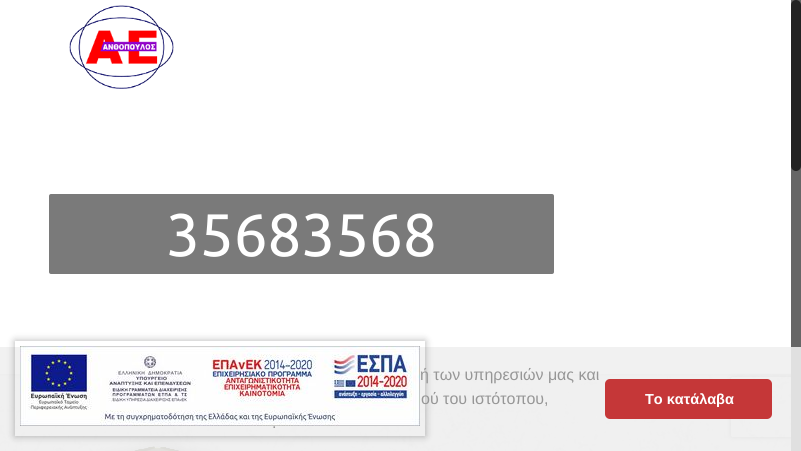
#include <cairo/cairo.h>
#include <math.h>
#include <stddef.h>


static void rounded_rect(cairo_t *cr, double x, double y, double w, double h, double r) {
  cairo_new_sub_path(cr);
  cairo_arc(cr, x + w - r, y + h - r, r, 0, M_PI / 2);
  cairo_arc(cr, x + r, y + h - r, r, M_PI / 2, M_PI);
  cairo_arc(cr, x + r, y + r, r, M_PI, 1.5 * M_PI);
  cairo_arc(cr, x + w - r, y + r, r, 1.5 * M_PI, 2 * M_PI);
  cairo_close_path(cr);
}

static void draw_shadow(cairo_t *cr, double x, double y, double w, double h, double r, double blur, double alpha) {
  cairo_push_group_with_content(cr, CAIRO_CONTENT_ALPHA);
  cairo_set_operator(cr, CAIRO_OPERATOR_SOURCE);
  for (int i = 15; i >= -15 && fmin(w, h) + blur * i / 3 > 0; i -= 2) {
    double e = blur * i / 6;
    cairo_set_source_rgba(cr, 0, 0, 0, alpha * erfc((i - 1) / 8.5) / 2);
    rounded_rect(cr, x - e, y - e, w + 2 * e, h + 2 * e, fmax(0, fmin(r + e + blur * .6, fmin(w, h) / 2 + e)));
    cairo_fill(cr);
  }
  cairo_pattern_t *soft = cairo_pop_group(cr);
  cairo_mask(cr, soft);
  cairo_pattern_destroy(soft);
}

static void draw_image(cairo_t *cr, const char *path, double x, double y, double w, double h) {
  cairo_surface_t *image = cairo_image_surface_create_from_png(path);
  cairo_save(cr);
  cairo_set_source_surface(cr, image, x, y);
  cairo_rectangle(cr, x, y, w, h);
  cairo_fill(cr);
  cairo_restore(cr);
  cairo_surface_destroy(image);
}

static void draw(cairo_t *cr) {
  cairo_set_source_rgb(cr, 1, 1, 1);
  cairo_paint(cr);
  draw_image(cr, "images/1.png", 0, 374, 791, 77);
  draw_image(cr, "images/2.png", 69, 5, 105, 84);
  cairo_set_source_rgb(cr, 122 / 255.0, 122 / 255.0, 122 / 255.0);
  rounded_rect(cr, 49, 194, 505, 80, 2);
  cairo_fill(cr);
  cairo_save(cr);
  cairo_set_fill_rule(cr, CAIRO_FILL_RULE_EVEN_ODD);
  cairo_new_path(cr);
  cairo_move_to(cr, 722, 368);
  cairo_line_to(cr, 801, 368);
  cairo_line_to(cr, 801, 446);
  cairo_line_to(cr, 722, 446);
  cairo_close_path(cr);
  cairo_move_to(cr, 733, 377);
  cairo_line_to(cr, 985, 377);
  cairo_curve_to(cr, 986, 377, 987, 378, 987, 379);
  cairo_line_to(cr, 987, 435);
  cairo_curve_to(cr, 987, 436, 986, 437, 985, 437);
  cairo_line_to(cr, 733, 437);
  cairo_curve_to(cr, 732, 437, 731, 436, 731, 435);
  cairo_line_to(cr, 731, 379);
  cairo_curve_to(cr, 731, 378, 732, 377, 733, 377);
  cairo_close_path(cr);
  cairo_clip(cr);
  cairo_set_source_rgb(cr, 128 / 255.0, 128 / 255.0, 128 / 255.0);
  draw_shadow(cr, 731, 377, 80, 60, 2, 2.5, 1);
  cairo_restore(cr);
  draw_image(cr, "images/3.png", 0, 374, 791, 2);
  draw_image(cr, "images/4.png", 96, 437, 129, 14);
  cairo_set_source_rgb(cr, 102 / 255.0, 102 / 255.0, 102 / 255.0);
  cairo_rectangle(cr, 791, 0, 10, 451);
  cairo_fill(cr);
  cairo_set_source_rgb(cr, 34 / 255.0, 34 / 255.0, 34 / 255.0);
  rounded_rect(cr, 791, 0, 10, 171, 5);
  cairo_fill(cr);
  cairo_set_source_rgba(cr, 239 / 255.0, 239 / 255.0, 239 / 255.0, 0.89);
  cairo_rectangle(cr, 0, 347, 801, 104);
  cairo_fill(cr);
  cairo_save(cr);
  cairo_set_fill_rule(cr, CAIRO_FILL_RULE_EVEN_ODD);
  cairo_new_path(cr);
  cairo_move_to(cr, 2, 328);
  cairo_line_to(cr, 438, 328);
  cairo_line_to(cr, 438, 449);
  cairo_line_to(cr, 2, 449);
  cairo_close_path(cr);
  cairo_move_to(cr, 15, 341);
  cairo_line_to(cr, 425, 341);
  cairo_line_to(cr, 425, 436);
  cairo_line_to(cr, 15, 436);
  cairo_close_path(cr);
  cairo_clip(cr);
  cairo_set_source_rgb(cr, 0, 0, 0);
  draw_shadow(cr, 15, 341, 410, 95, 0, 4, 0.3);
  cairo_restore(cr);
  draw_image(cr, "images/5.png", 20, 346, 400, 80);
  cairo_set_source_rgb(cr, 197 / 255.0, 55 / 255.0, 56 / 255.0);
  rounded_rect(cr, 605, 379, 167, 40, 5);
  cairo_fill(cr);
  cairo_select_font_face(cr, "Ubuntu", CAIRO_FONT_SLANT_NORMAL, CAIRO_FONT_WEIGHT_NORMAL);
  cairo_set_font_size(cr, 60);
  cairo_set_source_rgb(cr, 1, 1, 1);
  cairo_move_to(cr, 166, 256);
  cairo_show_text(cr, "35683568");
  cairo_select_font_face(cr, "Liberation Sans", CAIRO_FONT_SLANT_NORMAL, CAIRO_FONT_WEIGHT_NORMAL);
  cairo_set_font_size(cr, 16);
  cairo_set_source_rgb(cr, 150 / 255.0, 150 / 255.0, 150 / 255.0);
  cairo_move_to(cr, 420, 380);
  cairo_show_text(cr, "ή των υπηρεσιών μας και");
  cairo_move_to(cr, 421, 404);
  cairo_show_text(cr, "ού του ιστότοπου,");
  cairo_move_to(cr, 272, 428);
  cairo_show_text(cr, ".");
  cairo_select_font_face(cr, "Liberation Sans", CAIRO_FONT_SLANT_NORMAL, CAIRO_FONT_WEIGHT_BOLD);
  cairo_set_font_size(cr, 14.5);
  cairo_set_source_rgb(cr, 1, 1, 1);
  cairo_move_to(cr, 645, 404);
  cairo_show_text(cr, "Το κατάλαβα");
}

int main(void) {
  cairo_surface_t *surface = cairo_image_surface_create(CAIRO_FORMAT_RGB24, 801, 451);
  cairo_t *cr = cairo_create(surface);
  cairo_font_options_t *options = cairo_font_options_create();
  cairo_font_options_set_hint_metrics(options, CAIRO_HINT_METRICS_OFF);
  cairo_font_options_set_hint_style(options, CAIRO_HINT_STYLE_NONE);
  cairo_set_font_options(cr, options);
  cairo_set_miter_limit(cr, 4);
  draw(cr);
  cairo_surface_write_to_png(surface, "out.png");
  cairo_font_options_destroy(options);
  cairo_destroy(cr);
  cairo_surface_destroy(surface);
  return 0;
}
